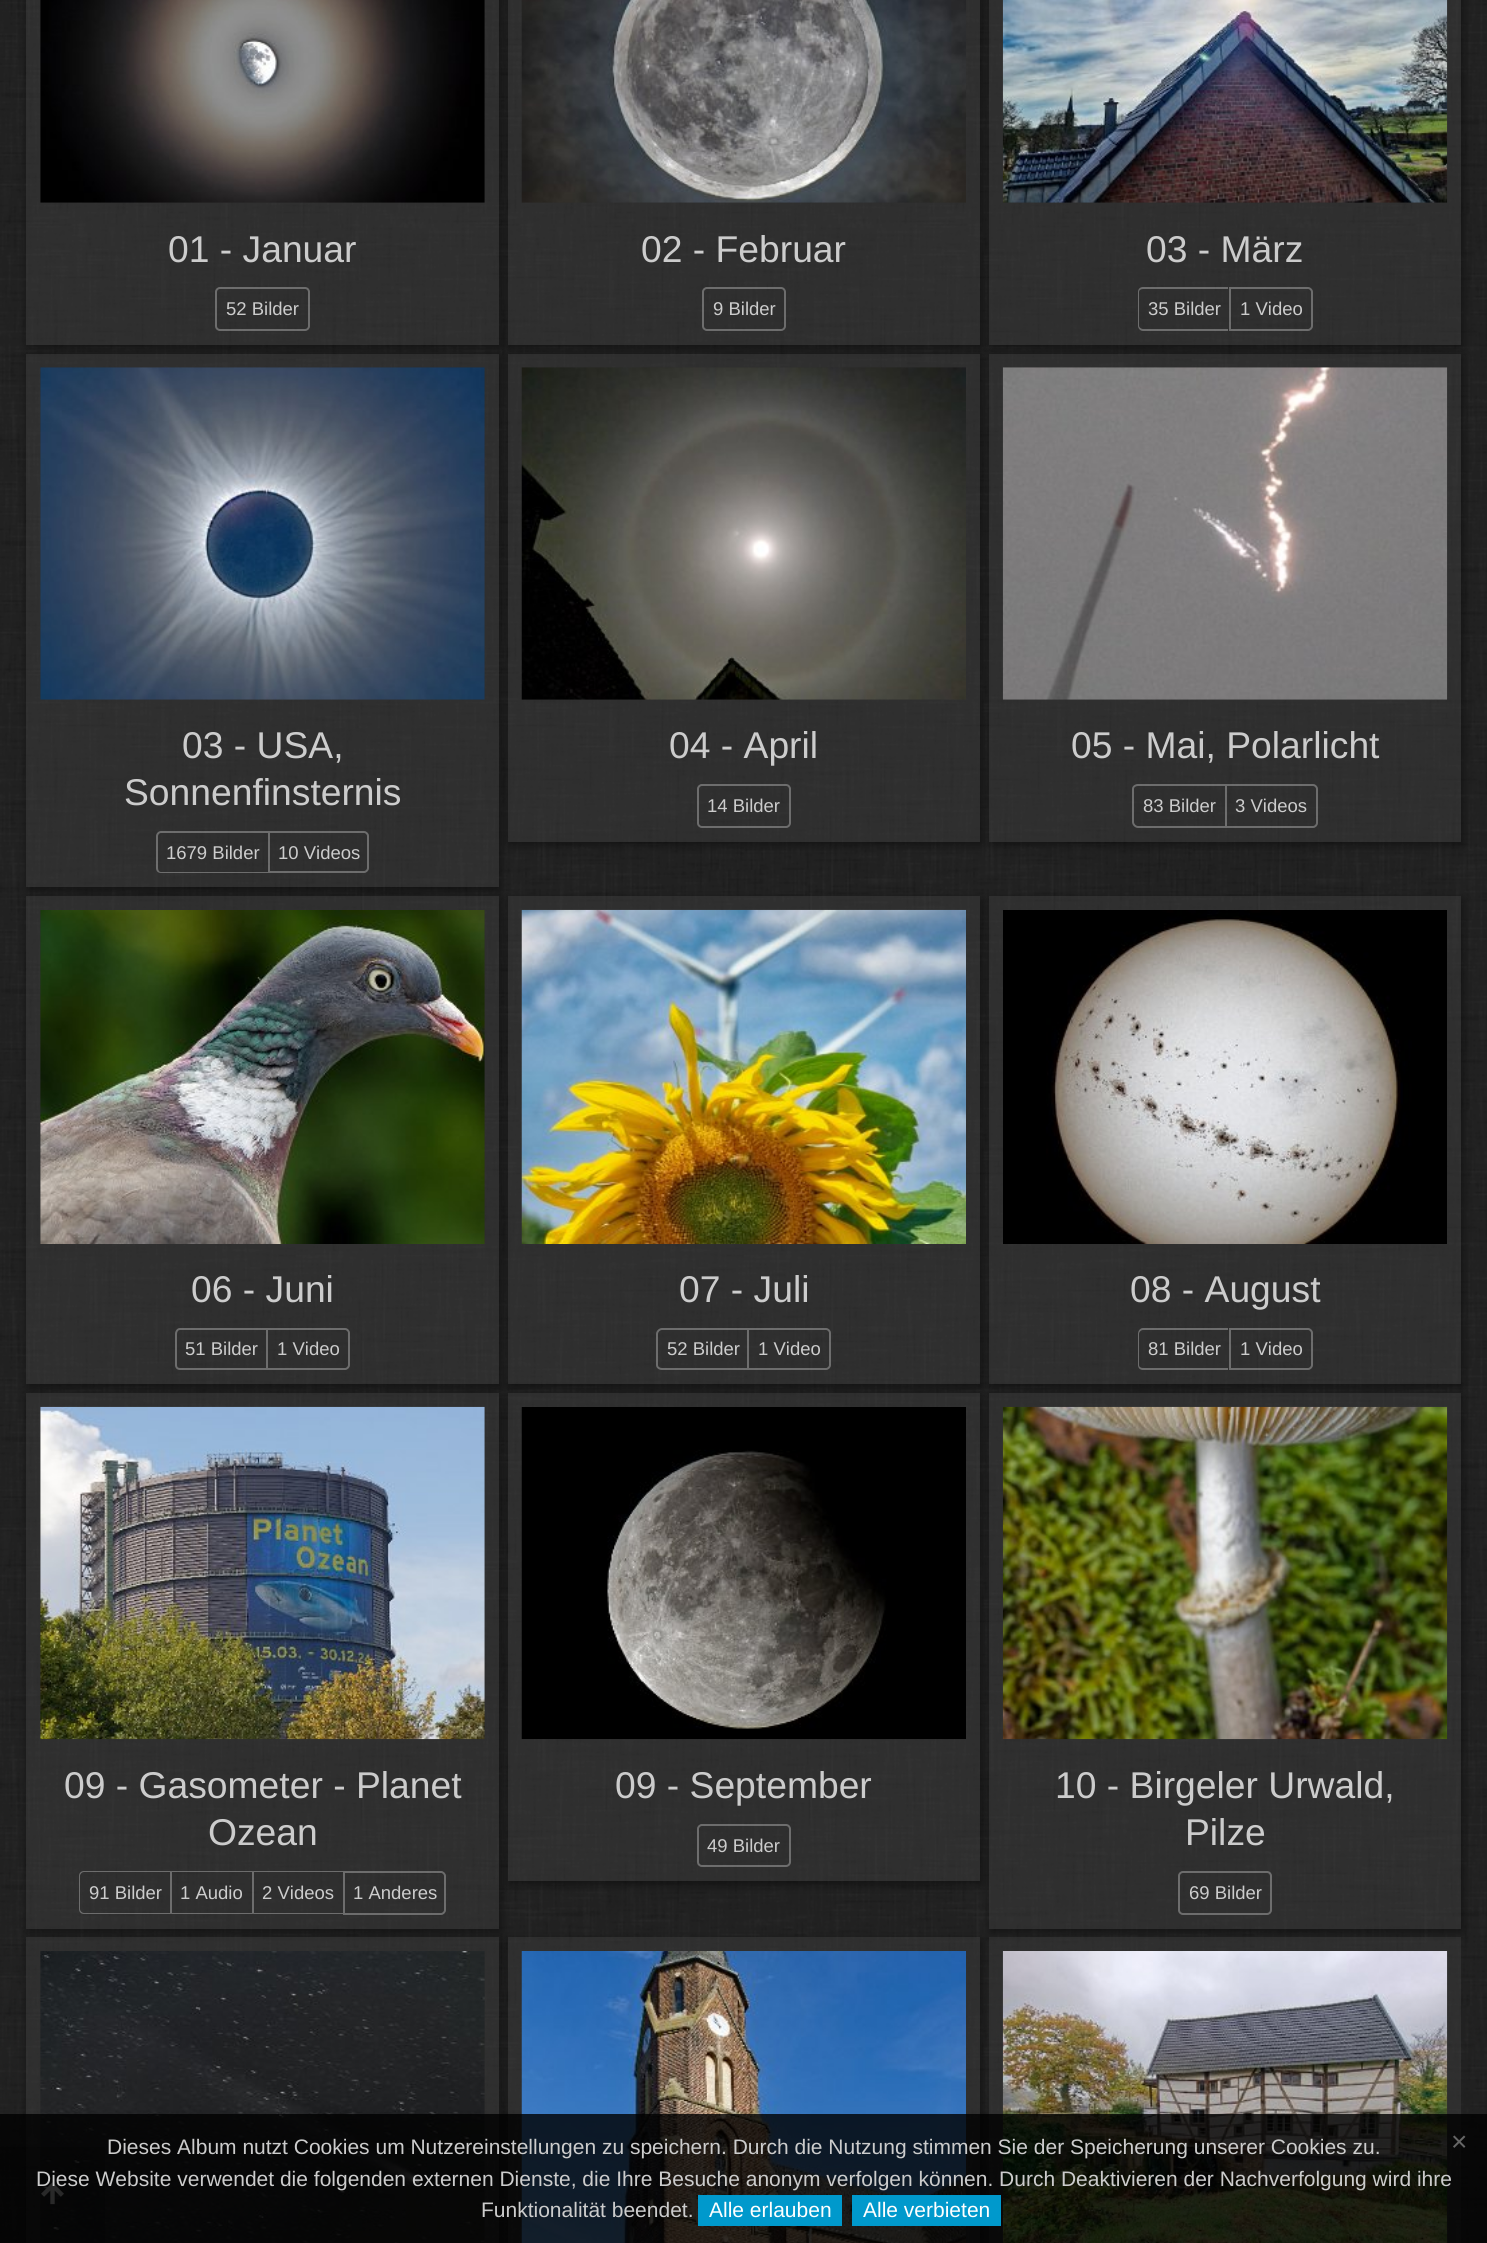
#include <cairo/cairo.h>
#include <math.h>
#include <stddef.h>


static void rounded_rect(cairo_t *cr, double x, double y, double w, double h, double r) {
  cairo_new_sub_path(cr);
  cairo_arc(cr, x + w - r, y + h - r, r, 0, M_PI / 2);
  cairo_arc(cr, x + r, y + h - r, r, M_PI / 2, M_PI);
  cairo_arc(cr, x + r, y + r, r, M_PI, 1.5 * M_PI);
  cairo_arc(cr, x + w - r, y + r, r, 1.5 * M_PI, 2 * M_PI);
  cairo_close_path(cr);
}

static void draw_shadow(cairo_t *cr, double x, double y, double w, double h, double r, double blur, double alpha) {
  cairo_push_group_with_content(cr, CAIRO_CONTENT_ALPHA);
  cairo_set_operator(cr, CAIRO_OPERATOR_SOURCE);
  for (int i = 15; i >= -15 && fmin(w, h) + blur * i / 3 > 0; i -= 2) {
    double e = blur * i / 6;
    cairo_set_source_rgba(cr, 0, 0, 0, alpha * erfc((i - 1) / 8.5) / 2);
    rounded_rect(cr, x - e, y - e, w + 2 * e, h + 2 * e, fmax(0, fmin(r + e + blur * .6, fmin(w, h) / 2 + e)));
    cairo_fill(cr);
  }
  cairo_pattern_t *soft = cairo_pop_group(cr);
  cairo_mask(cr, soft);
  cairo_pattern_destroy(soft);
}

static void draw_image(cairo_t *cr, const char *path, double x, double y, double w, double h) {
  cairo_surface_t *image = cairo_image_surface_create_from_png(path);
  cairo_save(cr);
  cairo_set_source_surface(cr, image, x, y);
  cairo_rectangle(cr, x, y, w, h);
  cairo_fill(cr);
  cairo_restore(cr);
  cairo_surface_destroy(image);
}

static void draw(cairo_t *cr) {
  cairo_set_source_rgb(cr, 34 / 255.0, 34 / 255.0, 34 / 255.0);
  cairo_paint(cr);
  draw_image(cr, "images/1.png", 0, 0, 1487, 2243);
  cairo_save(cr);
  cairo_set_fill_rule(cr, CAIRO_FILL_RULE_EVEN_ODD);
  cairo_new_path(cr);
  cairo_move_to(cr, 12, 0);
  cairo_line_to(cr, 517, 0);
  cairo_line_to(cr, 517, 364);
  cairo_line_to(cr, 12, 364);
  cairo_close_path(cr);
  cairo_move_to(cr, 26, -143);
  cairo_line_to(cr, 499, -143);
  cairo_line_to(cr, 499, 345);
  cairo_line_to(cr, 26, 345);
  cairo_close_path(cr);
  cairo_clip(cr);
  cairo_set_source_rgb(cr, 0, 0, 0);
  draw_shadow(cr, 28, -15, 473, 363, 0, 5, 0.45);
  cairo_restore(cr);
  cairo_set_source_rgba(cr, 68 / 255.0, 68 / 255.0, 68 / 255.0, 0.4);
  cairo_rectangle(cr, 26, 0, 473, 345);
  cairo_fill(cr);
  draw_image(cr, "images/2.png", 40, 0, 445, 203);
  rounded_rect(cr, 216, 288, 93, 42, 4);
  cairo_set_source_rgba(cr, 204 / 255.0, 204 / 255.0, 204 / 255.0, 0.4);
  cairo_stroke(cr);
  cairo_save(cr);
  cairo_set_fill_rule(cr, CAIRO_FILL_RULE_EVEN_ODD);
  cairo_new_path(cr);
  cairo_move_to(cr, 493, 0);
  cairo_line_to(cr, 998, 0);
  cairo_line_to(cr, 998, 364);
  cairo_line_to(cr, 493, 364);
  cairo_close_path(cr);
  cairo_move_to(cr, 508, -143);
  cairo_line_to(cr, 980, -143);
  cairo_line_to(cr, 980, 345);
  cairo_line_to(cr, 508, 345);
  cairo_close_path(cr);
  cairo_clip(cr);
  cairo_set_source_rgb(cr, 0, 0, 0);
  draw_shadow(cr, 509, -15, 473, 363, 0, 5, 0.45);
  cairo_restore(cr);
  cairo_set_source_rgba(cr, 68 / 255.0, 68 / 255.0, 68 / 255.0, 0.4);
  cairo_rectangle(cr, 508, 0, 472, 345);
  cairo_fill(cr);
  draw_image(cr, "images/3.png", 521, 0, 445, 203);
  rounded_rect(cr, 703, 288, 82, 42, 4);
  cairo_set_source_rgba(cr, 204 / 255.0, 204 / 255.0, 204 / 255.0, 0.4);
  cairo_stroke(cr);
  cairo_save(cr);
  cairo_set_fill_rule(cr, CAIRO_FILL_RULE_EVEN_ODD);
  cairo_new_path(cr);
  cairo_move_to(cr, 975, 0);
  cairo_line_to(cr, 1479, 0);
  cairo_line_to(cr, 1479, 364);
  cairo_line_to(cr, 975, 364);
  cairo_close_path(cr);
  cairo_move_to(cr, 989, -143);
  cairo_line_to(cr, 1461, -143);
  cairo_line_to(cr, 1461, 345);
  cairo_line_to(cr, 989, 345);
  cairo_close_path(cr);
  cairo_clip(cr);
  cairo_set_source_rgb(cr, 0, 0, 0);
  draw_shadow(cr, 991, -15, 472, 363, 0, 5, 0.45);
  cairo_restore(cr);
  cairo_set_source_rgba(cr, 68 / 255.0, 68 / 255.0, 68 / 255.0, 0.4);
  cairo_rectangle(cr, 989, 0, 472, 345);
  cairo_fill(cr);
  draw_image(cr, "images/4.png", 1002, 0, 446, 203);
  cairo_set_source_rgba(cr, 204 / 255.0, 204 / 255.0, 204 / 255.0, 0.4);
  cairo_set_fill_rule(cr, CAIRO_FILL_RULE_EVEN_ODD);
  cairo_new_path(cr);
  cairo_move_to(cr, 1143, 287);
  cairo_line_to(cr, 1228, 287);
  cairo_line_to(cr, 1228, 331);
  cairo_line_to(cr, 1143, 331);
  cairo_curve_to(cr, 1140, 331, 1138, 328, 1138, 326);
  cairo_line_to(cr, 1138, 292);
  cairo_curve_to(cr, 1138, 289, 1140, 287, 1143, 287);
  cairo_close_path(cr);
  cairo_move_to(cr, 1143, 289);
  cairo_line_to(cr, 1228, 289);
  cairo_line_to(cr, 1228, 329);
  cairo_line_to(cr, 1143, 329);
  cairo_curve_to(cr, 1141, 329, 1139, 327, 1139, 326);
  cairo_line_to(cr, 1139, 292);
  cairo_curve_to(cr, 1139, 290, 1141, 289, 1143, 289);
  cairo_close_path(cr);
  cairo_fill(cr);
  cairo_new_path(cr);
  cairo_move_to(cr, 1230, 288);
  cairo_line_to(cr, 1308, 288);
  cairo_curve_to(cr, 1310, 288, 1312, 290, 1312, 292);
  cairo_line_to(cr, 1312, 326);
  cairo_curve_to(cr, 1312, 328, 1310, 330, 1308, 330);
  cairo_line_to(cr, 1230, 330);
  cairo_close_path(cr);
  cairo_stroke(cr);
  cairo_save(cr);
  cairo_new_path(cr);
  cairo_move_to(cr, 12, 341);
  cairo_line_to(cr, 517, 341);
  cairo_line_to(cr, 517, 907);
  cairo_line_to(cr, 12, 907);
  cairo_close_path(cr);
  cairo_move_to(cr, 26, 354);
  cairo_line_to(cr, 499, 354);
  cairo_line_to(cr, 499, 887);
  cairo_line_to(cr, 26, 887);
  cairo_close_path(cr);
  cairo_clip(cr);
  cairo_set_source_rgb(cr, 0, 0, 0);
  draw_shadow(cr, 28, 357, 473, 534, 0, 5, 0.45);
  cairo_restore(cr);
  cairo_set_source_rgba(cr, 68 / 255.0, 68 / 255.0, 68 / 255.0, 0.4);
  cairo_rectangle(cr, 26, 354, 473, 533);
  cairo_fill(cr);
  draw_image(cr, "images/5.png", 40, 367, 445, 333);
  cairo_set_source_rgba(cr, 204 / 255.0, 204 / 255.0, 204 / 255.0, 0.4);
  cairo_new_path(cr);
  cairo_move_to(cr, 161, 831);
  cairo_line_to(cr, 268, 831);
  cairo_line_to(cr, 268, 873);
  cairo_line_to(cr, 161, 873);
  cairo_curve_to(cr, 158, 873, 156, 871, 156, 868);
  cairo_line_to(cr, 156, 836);
  cairo_curve_to(cr, 156, 834, 158, 831, 161, 831);
  cairo_close_path(cr);
  cairo_move_to(cr, 161, 833);
  cairo_line_to(cr, 268, 833);
  cairo_line_to(cr, 268, 872);
  cairo_line_to(cr, 161, 872);
  cairo_curve_to(cr, 159, 872, 158, 870, 158, 868);
  cairo_line_to(cr, 158, 836);
  cairo_curve_to(cr, 158, 835, 159, 833, 161, 833);
  cairo_close_path(cr);
  cairo_fill(cr);
  cairo_new_path(cr);
  cairo_move_to(cr, 269, 832);
  cairo_line_to(cr, 364, 832);
  cairo_curve_to(cr, 366, 832, 368, 834, 368, 836);
  cairo_line_to(cr, 368, 868);
  cairo_curve_to(cr, 368, 870, 366, 872, 364, 872);
  cairo_line_to(cr, 269, 872);
  cairo_close_path(cr);
  cairo_stroke(cr);
  cairo_save(cr);
  cairo_new_path(cr);
  cairo_move_to(cr, 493, 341);
  cairo_line_to(cr, 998, 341);
  cairo_line_to(cr, 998, 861);
  cairo_line_to(cr, 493, 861);
  cairo_close_path(cr);
  cairo_move_to(cr, 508, 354);
  cairo_line_to(cr, 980, 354);
  cairo_line_to(cr, 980, 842);
  cairo_line_to(cr, 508, 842);
  cairo_close_path(cr);
  cairo_clip(cr);
  cairo_set_source_rgb(cr, 0, 0, 0);
  draw_shadow(cr, 509, 357, 473, 488, 0, 5, 0.45);
  cairo_restore(cr);
  cairo_set_source_rgba(cr, 68 / 255.0, 68 / 255.0, 68 / 255.0, 0.4);
  cairo_rectangle(cr, 508, 354, 472, 488);
  cairo_fill(cr);
  draw_image(cr, "images/6.png", 521, 367, 445, 333);
  rounded_rect(cr, 698, 785, 92, 42, 4);
  cairo_set_source_rgba(cr, 204 / 255.0, 204 / 255.0, 204 / 255.0, 0.4);
  cairo_stroke(cr);
  cairo_save(cr);
  cairo_new_path(cr);
  cairo_move_to(cr, 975, 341);
  cairo_line_to(cr, 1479, 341);
  cairo_line_to(cr, 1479, 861);
  cairo_line_to(cr, 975, 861);
  cairo_close_path(cr);
  cairo_move_to(cr, 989, 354);
  cairo_line_to(cr, 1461, 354);
  cairo_line_to(cr, 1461, 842);
  cairo_line_to(cr, 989, 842);
  cairo_close_path(cr);
  cairo_clip(cr);
  cairo_set_source_rgb(cr, 0, 0, 0);
  draw_shadow(cr, 991, 357, 472, 488, 0, 5, 0.45);
  cairo_restore(cr);
  cairo_set_source_rgba(cr, 68 / 255.0, 68 / 255.0, 68 / 255.0, 0.4);
  cairo_rectangle(cr, 989, 354, 472, 488);
  cairo_fill(cr);
  draw_image(cr, "images/7.png", 1002, 367, 446, 333);
  cairo_set_source_rgba(cr, 204 / 255.0, 204 / 255.0, 204 / 255.0, 0.4);
  cairo_new_path(cr);
  cairo_move_to(cr, 1138, 784);
  cairo_line_to(cr, 1225, 784);
  cairo_line_to(cr, 1225, 828);
  cairo_line_to(cr, 1138, 828);
  cairo_curve_to(cr, 1135, 828, 1132, 825, 1132, 822);
  cairo_line_to(cr, 1132, 789);
  cairo_curve_to(cr, 1132, 786, 1135, 784, 1138, 784);
  cairo_close_path(cr);
  cairo_move_to(cr, 1138, 786);
  cairo_line_to(cr, 1225, 786);
  cairo_line_to(cr, 1225, 826);
  cairo_line_to(cr, 1138, 826);
  cairo_curve_to(cr, 1136, 826, 1134, 824, 1134, 822);
  cairo_line_to(cr, 1134, 789);
  cairo_curve_to(cr, 1134, 787, 1136, 786, 1138, 786);
  cairo_close_path(cr);
  cairo_fill(cr);
  cairo_new_path(cr);
  cairo_move_to(cr, 1226, 785);
  cairo_line_to(cr, 1313, 785);
  cairo_curve_to(cr, 1315, 785, 1317, 787, 1317, 789);
  cairo_line_to(cr, 1317, 823);
  cairo_curve_to(cr, 1317, 825, 1315, 827, 1313, 827);
  cairo_line_to(cr, 1226, 827);
  cairo_close_path(cr);
  cairo_stroke(cr);
  cairo_save(cr);
  cairo_new_path(cr);
  cairo_move_to(cr, 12, 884);
  cairo_line_to(cr, 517, 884);
  cairo_line_to(cr, 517, 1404);
  cairo_line_to(cr, 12, 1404);
  cairo_close_path(cr);
  cairo_move_to(cr, 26, 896);
  cairo_line_to(cr, 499, 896);
  cairo_line_to(cr, 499, 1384);
  cairo_line_to(cr, 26, 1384);
  cairo_close_path(cr);
  cairo_clip(cr);
  cairo_set_source_rgb(cr, 0, 0, 0);
  draw_shadow(cr, 28, 900, 473, 488, 0, 5, 0.45);
  cairo_restore(cr);
  cairo_set_source_rgba(cr, 68 / 255.0, 68 / 255.0, 68 / 255.0, 0.4);
  cairo_rectangle(cr, 26, 896, 473, 488);
  cairo_fill(cr);
  draw_image(cr, "images/8.png", 40, 910, 445, 334);
  cairo_set_source_rgba(cr, 204 / 255.0, 204 / 255.0, 204 / 255.0, 0.4);
  cairo_new_path(cr);
  cairo_move_to(cr, 180, 1328);
  cairo_line_to(cr, 266, 1328);
  cairo_line_to(cr, 266, 1370);
  cairo_line_to(cr, 180, 1370);
  cairo_curve_to(cr, 177, 1370, 175, 1368, 175, 1365);
  cairo_line_to(cr, 175, 1334);
  cairo_curve_to(cr, 175, 1331, 177, 1328, 180, 1328);
  cairo_close_path(cr);
  cairo_move_to(cr, 180, 1330);
  cairo_line_to(cr, 266, 1330);
  cairo_line_to(cr, 266, 1368);
  cairo_line_to(cr, 180, 1368);
  cairo_curve_to(cr, 178, 1368, 177, 1367, 177, 1365);
  cairo_line_to(cr, 177, 1334);
  cairo_curve_to(cr, 177, 1332, 178, 1330, 180, 1330);
  cairo_close_path(cr);
  cairo_fill(cr);
  cairo_new_path(cr);
  cairo_move_to(cr, 267, 1329);
  cairo_line_to(cr, 345, 1329);
  cairo_curve_to(cr, 347, 1329, 349, 1331, 349, 1333);
  cairo_line_to(cr, 349, 1365);
  cairo_curve_to(cr, 349, 1367, 347, 1369, 345, 1369);
  cairo_line_to(cr, 267, 1369);
  cairo_close_path(cr);
  cairo_stroke(cr);
  cairo_save(cr);
  cairo_new_path(cr);
  cairo_move_to(cr, 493, 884);
  cairo_line_to(cr, 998, 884);
  cairo_line_to(cr, 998, 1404);
  cairo_line_to(cr, 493, 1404);
  cairo_close_path(cr);
  cairo_move_to(cr, 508, 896);
  cairo_line_to(cr, 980, 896);
  cairo_line_to(cr, 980, 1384);
  cairo_line_to(cr, 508, 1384);
  cairo_close_path(cr);
  cairo_clip(cr);
  cairo_set_source_rgb(cr, 0, 0, 0);
  draw_shadow(cr, 509, 900, 473, 488, 0, 5, 0.45);
  cairo_restore(cr);
  cairo_set_source_rgba(cr, 68 / 255.0, 68 / 255.0, 68 / 255.0, 0.4);
  cairo_rectangle(cr, 508, 896, 472, 488);
  cairo_fill(cr);
  draw_image(cr, "images/9.png", 521, 909, 445, 335);
  cairo_set_source_rgba(cr, 204 / 255.0, 204 / 255.0, 204 / 255.0, 0.4);
  cairo_new_path(cr);
  cairo_move_to(cr, 662, 1328);
  cairo_line_to(cr, 747, 1328);
  cairo_line_to(cr, 747, 1370);
  cairo_line_to(cr, 662, 1370);
  cairo_curve_to(cr, 659, 1370, 656, 1368, 656, 1365);
  cairo_line_to(cr, 656, 1334);
  cairo_curve_to(cr, 656, 1331, 659, 1328, 662, 1328);
  cairo_close_path(cr);
  cairo_move_to(cr, 662, 1330);
  cairo_line_to(cr, 747, 1330);
  cairo_line_to(cr, 747, 1368);
  cairo_line_to(cr, 662, 1368);
  cairo_curve_to(cr, 660, 1368, 658, 1367, 658, 1365);
  cairo_line_to(cr, 658, 1334);
  cairo_curve_to(cr, 658, 1332, 660, 1330, 662, 1330);
  cairo_close_path(cr);
  cairo_fill(cr);
  cairo_new_path(cr);
  cairo_move_to(cr, 748, 1329);
  cairo_line_to(cr, 826, 1329);
  cairo_curve_to(cr, 828, 1329, 830, 1331, 830, 1333);
  cairo_line_to(cr, 830, 1365);
  cairo_curve_to(cr, 830, 1367, 828, 1369, 826, 1369);
  cairo_line_to(cr, 748, 1369);
  cairo_close_path(cr);
  cairo_stroke(cr);
  cairo_save(cr);
  cairo_new_path(cr);
  cairo_move_to(cr, 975, 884);
  cairo_line_to(cr, 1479, 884);
  cairo_line_to(cr, 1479, 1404);
  cairo_line_to(cr, 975, 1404);
  cairo_close_path(cr);
  cairo_move_to(cr, 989, 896);
  cairo_line_to(cr, 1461, 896);
  cairo_line_to(cr, 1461, 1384);
  cairo_line_to(cr, 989, 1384);
  cairo_close_path(cr);
  cairo_clip(cr);
  cairo_set_source_rgb(cr, 0, 0, 0);
  draw_shadow(cr, 991, 900, 472, 488, 0, 5, 0.45);
  cairo_restore(cr);
  cairo_set_source_rgba(cr, 68 / 255.0, 68 / 255.0, 68 / 255.0, 0.4);
  cairo_rectangle(cr, 989, 896, 472, 488);
  cairo_fill(cr);
  draw_image(cr, "images/10.png", 1003, 910, 444, 334);
  cairo_set_source_rgba(cr, 204 / 255.0, 204 / 255.0, 204 / 255.0, 0.4);
  cairo_new_path(cr);
  cairo_move_to(cr, 1143, 1328);
  cairo_line_to(cr, 1228, 1328);
  cairo_line_to(cr, 1228, 1370);
  cairo_line_to(cr, 1143, 1370);
  cairo_curve_to(cr, 1140, 1370, 1138, 1368, 1138, 1365);
  cairo_line_to(cr, 1138, 1334);
  cairo_curve_to(cr, 1138, 1331, 1140, 1328, 1143, 1328);
  cairo_close_path(cr);
  cairo_move_to(cr, 1143, 1330);
  cairo_line_to(cr, 1228, 1330);
  cairo_line_to(cr, 1228, 1368);
  cairo_line_to(cr, 1143, 1368);
  cairo_curve_to(cr, 1141, 1368, 1139, 1367, 1139, 1365);
  cairo_line_to(cr, 1139, 1334);
  cairo_curve_to(cr, 1139, 1332, 1141, 1330, 1143, 1330);
  cairo_close_path(cr);
  cairo_fill(cr);
  cairo_new_path(cr);
  cairo_move_to(cr, 1230, 1329);
  cairo_line_to(cr, 1308, 1329);
  cairo_curve_to(cr, 1310, 1329, 1312, 1331, 1312, 1333);
  cairo_line_to(cr, 1312, 1365);
  cairo_curve_to(cr, 1312, 1367, 1310, 1369, 1308, 1369);
  cairo_line_to(cr, 1230, 1369);
  cairo_close_path(cr);
  cairo_stroke(cr);
  cairo_save(cr);
  cairo_new_path(cr);
  cairo_move_to(cr, 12, 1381);
  cairo_line_to(cr, 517, 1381);
  cairo_line_to(cr, 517, 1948);
  cairo_line_to(cr, 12, 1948);
  cairo_close_path(cr);
  cairo_move_to(cr, 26, 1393);
  cairo_line_to(cr, 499, 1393);
  cairo_line_to(cr, 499, 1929);
  cairo_line_to(cr, 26, 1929);
  cairo_close_path(cr);
  cairo_clip(cr);
  cairo_set_source_rgb(cr, 0, 0, 0);
  draw_shadow(cr, 28, 1397, 473, 535, 0, 5, 0.45);
  cairo_restore(cr);
  cairo_set_source_rgba(cr, 68 / 255.0, 68 / 255.0, 68 / 255.0, 0.4);
  cairo_rectangle(cr, 26, 1393, 473, 536);
  cairo_fill(cr);
  draw_image(cr, "images/11.png", 40, 1406, 445, 334);
  cairo_set_source_rgba(cr, 204 / 255.0, 204 / 255.0, 204 / 255.0, 0.4);
  cairo_new_path(cr);
  cairo_move_to(cr, 84, 1871);
  cairo_line_to(cr, 170, 1871);
  cairo_line_to(cr, 170, 1914);
  cairo_line_to(cr, 84, 1914);
  cairo_curve_to(cr, 81, 1914, 79, 1912, 79, 1909);
  cairo_line_to(cr, 79, 1876);
  cairo_curve_to(cr, 79, 1873, 81, 1871, 84, 1871);
  cairo_close_path(cr);
  cairo_move_to(cr, 84, 1872);
  cairo_line_to(cr, 170, 1872);
  cairo_line_to(cr, 170, 1913);
  cairo_line_to(cr, 84, 1913);
  cairo_curve_to(cr, 82, 1913, 80, 1911, 80, 1909);
  cairo_line_to(cr, 80, 1876);
  cairo_curve_to(cr, 80, 1874, 82, 1872, 84, 1872);
  cairo_close_path(cr);
  cairo_fill(cr);
  cairo_set_fill_rule(cr, CAIRO_FILL_RULE_WINDING);
  cairo_new_path(cr);
  cairo_move_to(cr, 170, 1871);
  cairo_line_to(cr, 252, 1871);
  cairo_line_to(cr, 252, 1872);
  cairo_line_to(cr, 172, 1872);
  cairo_close_path(cr);
  cairo_fill(cr);
  cairo_new_path(cr);
  cairo_move_to(cr, 252, 1914);
  cairo_line_to(cr, 170, 1914);
  cairo_line_to(cr, 172, 1913);
  cairo_line_to(cr, 252, 1913);
  cairo_close_path(cr);
  cairo_fill(cr);
  cairo_new_path(cr);
  cairo_move_to(cr, 170, 1914);
  cairo_line_to(cr, 170, 1871);
  cairo_line_to(cr, 172, 1872);
  cairo_line_to(cr, 172, 1913);
  cairo_close_path(cr);
  cairo_fill(cr);
  cairo_new_path(cr);
  cairo_move_to(cr, 252, 1871);
  cairo_line_to(cr, 343, 1871);
  cairo_line_to(cr, 343, 1872);
  cairo_line_to(cr, 254, 1872);
  cairo_close_path(cr);
  cairo_fill(cr);
  cairo_new_path(cr);
  cairo_move_to(cr, 343, 1914);
  cairo_line_to(cr, 252, 1914);
  cairo_line_to(cr, 254, 1913);
  cairo_line_to(cr, 343, 1913);
  cairo_close_path(cr);
  cairo_fill(cr);
  cairo_new_path(cr);
  cairo_move_to(cr, 252, 1914);
  cairo_line_to(cr, 252, 1871);
  cairo_line_to(cr, 254, 1872);
  cairo_line_to(cr, 254, 1913);
  cairo_close_path(cr);
  cairo_fill(cr);
  cairo_new_path(cr);
  cairo_move_to(cr, 344, 1872);
  cairo_line_to(cr, 441, 1872);
  cairo_curve_to(cr, 443, 1872, 445, 1874, 445, 1876);
  cairo_line_to(cr, 445, 1910);
  cairo_curve_to(cr, 445, 1912, 443, 1914, 441, 1914);
  cairo_line_to(cr, 344, 1914);
  cairo_close_path(cr);
  cairo_stroke(cr);
  cairo_save(cr);
  cairo_set_fill_rule(cr, CAIRO_FILL_RULE_EVEN_ODD);
  cairo_new_path(cr);
  cairo_move_to(cr, 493, 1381);
  cairo_line_to(cr, 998, 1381);
  cairo_line_to(cr, 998, 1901);
  cairo_line_to(cr, 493, 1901);
  cairo_close_path(cr);
  cairo_move_to(cr, 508, 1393);
  cairo_line_to(cr, 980, 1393);
  cairo_line_to(cr, 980, 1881);
  cairo_line_to(cr, 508, 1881);
  cairo_close_path(cr);
  cairo_clip(cr);
  cairo_set_source_rgb(cr, 0, 0, 0);
  draw_shadow(cr, 509, 1397, 473, 488, 0, 5, 0.45);
  cairo_restore(cr);
  cairo_set_source_rgba(cr, 68 / 255.0, 68 / 255.0, 68 / 255.0, 0.4);
  cairo_rectangle(cr, 508, 1393, 472, 488);
  cairo_fill(cr);
  draw_image(cr, "images/12.png", 521, 1407, 445, 332);
  rounded_rect(cr, 698, 1825, 92, 41, 4);
  cairo_set_source_rgba(cr, 204 / 255.0, 204 / 255.0, 204 / 255.0, 0.4);
  cairo_stroke(cr);
  cairo_save(cr);
  cairo_set_fill_rule(cr, CAIRO_FILL_RULE_EVEN_ODD);
  cairo_new_path(cr);
  cairo_move_to(cr, 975, 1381);
  cairo_line_to(cr, 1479, 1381);
  cairo_line_to(cr, 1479, 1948);
  cairo_line_to(cr, 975, 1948);
  cairo_close_path(cr);
  cairo_move_to(cr, 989, 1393);
  cairo_line_to(cr, 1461, 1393);
  cairo_line_to(cr, 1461, 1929);
  cairo_line_to(cr, 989, 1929);
  cairo_close_path(cr);
  cairo_clip(cr);
  cairo_set_source_rgb(cr, 0, 0, 0);
  draw_shadow(cr, 991, 1397, 472, 535, 0, 5, 0.45);
  cairo_restore(cr);
  cairo_set_source_rgba(cr, 68 / 255.0, 68 / 255.0, 68 / 255.0, 0.4);
  cairo_rectangle(cr, 989, 1393, 472, 536);
  cairo_fill(cr);
  draw_image(cr, "images/13.png", 1002, 1406, 446, 334);
  rounded_rect(cr, 1179, 1872, 92, 42, 4);
  cairo_set_source_rgba(cr, 204 / 255.0, 204 / 255.0, 204 / 255.0, 0.4);
  cairo_stroke(cr);
  cairo_save(cr);
  cairo_set_fill_rule(cr, CAIRO_FILL_RULE_EVEN_ODD);
  cairo_new_path(cr);
  cairo_move_to(cr, 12, 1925);
  cairo_line_to(cr, 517, 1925);
  cairo_line_to(cr, 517, 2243);
  cairo_line_to(cr, 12, 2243);
  cairo_close_path(cr);
  cairo_move_to(cr, 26, 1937);
  cairo_line_to(cr, 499, 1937);
  cairo_line_to(cr, 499, 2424);
  cairo_line_to(cr, 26, 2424);
  cairo_close_path(cr);
  cairo_clip(cr);
  cairo_set_source_rgb(cr, 0, 0, 0);
  draw_shadow(cr, 28, 1941, 473, 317, 0, 5, 0.45);
  cairo_restore(cr);
  cairo_set_source_rgba(cr, 68 / 255.0, 68 / 255.0, 68 / 255.0, 0.4);
  cairo_rectangle(cr, 26, 1937, 473, 306);
  cairo_fill(cr);
  draw_image(cr, "images/14.png", 40, 1951, 445, 292);
  cairo_save(cr);
  cairo_set_fill_rule(cr, CAIRO_FILL_RULE_EVEN_ODD);
  cairo_new_path(cr);
  cairo_move_to(cr, 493, 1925);
  cairo_line_to(cr, 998, 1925);
  cairo_line_to(cr, 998, 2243);
  cairo_line_to(cr, 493, 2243);
  cairo_close_path(cr);
  cairo_move_to(cr, 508, 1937);
  cairo_line_to(cr, 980, 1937);
  cairo_line_to(cr, 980, 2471);
  cairo_line_to(cr, 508, 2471);
  cairo_close_path(cr);
  cairo_clip(cr);
  cairo_set_source_rgb(cr, 0, 0, 0);
  draw_shadow(cr, 509, 1941, 473, 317, 0, 5, 0.45);
  cairo_restore(cr);
  cairo_rectangle(cr, 508, 1937, 472, 306);
  cairo_fill(cr);
  draw_image(cr, "images/15.png", 521, 1951, 445, 292);
  cairo_rectangle(cr, 989, 1937, 472, 306);
  cairo_fill(cr);
  draw_image(cr, "images/16.png", 1002, 1951, 446, 292);
  cairo_set_source_rgba(cr, 0, 0, 0, 0.2);
  cairo_rectangle(cr, 0, 2147, 105, 96);
  cairo_fill(cr);
  draw_image(cr, "images/17.png", 41, 2182, 23, 23);
  cairo_set_source_rgba(cr, 0, 0, 0, 0.8);
  cairo_rectangle(cr, 0, 2114, 1487, 129);
  cairo_fill(cr);
  cairo_set_source_rgb(cr, 0, 153 / 255.0, 204 / 255.0);
  cairo_rectangle(cr, 698, 2195, 144, 31);
  cairo_fill(cr);
  cairo_rectangle(cr, 852, 2195, 149, 31);
  cairo_fill(cr);
  cairo_select_font_face(cr, "Liberation Sans", CAIRO_FONT_SLANT_NORMAL, CAIRO_FONT_WEIGHT_NORMAL);
  cairo_set_font_size(cr, 37.25);
  cairo_set_source_rgb(cr, 204 / 255.0, 204 / 255.0, 204 / 255.0);
  cairo_move_to(cr, 168, 262);
  cairo_show_text(cr, "01 - Januar");
  cairo_set_font_size(cr, 18.5);
  cairo_move_to(cr, 226, 315);
  cairo_show_text(cr, "52 Bilder");
  cairo_set_font_size(cr, 37.25);
  cairo_move_to(cr, 641, 262);
  cairo_show_text(cr, "02 - Februar");
  cairo_set_font_size(cr, 18.5);
  cairo_move_to(cr, 713, 315);
  cairo_show_text(cr, "9 Bilder");
  cairo_set_font_size(cr, 37.25);
  cairo_move_to(cr, 1146, 262);
  cairo_show_text(cr, "03 - März");
  cairo_set_font_size(cr, 18.5);
  cairo_move_to(cr, 1148, 315);
  cairo_show_text(cr, "35 Bilder");
  cairo_move_to(cr, 1240, 315);
  cairo_show_text(cr, "1 Video");
  cairo_set_font_size(cr, 37.25);
  cairo_move_to(cr, 182, 758);
  cairo_show_text(cr, "03 - USA,");
  cairo_move_to(cr, 124, 805);
  cairo_show_text(cr, "Sonnenfinsternis");
  cairo_set_font_size(cr, 18.5);
  cairo_move_to(cr, 166, 859);
  cairo_show_text(cr, "1679 Bilder");
  cairo_move_to(cr, 278, 859);
  cairo_show_text(cr, "10 Videos");
  cairo_set_font_size(cr, 37.25);
  cairo_move_to(cr, 669, 758);
  cairo_show_text(cr, "04 - April");
  cairo_set_font_size(cr, 18.5);
  cairo_move_to(cr, 707, 812);
  cairo_show_text(cr, "14 Bilder");
  cairo_set_font_size(cr, 37.25);
  cairo_move_to(cr, 1071, 758);
  cairo_show_text(cr, "05 - Mai, Polarlicht");
  cairo_set_font_size(cr, 18.5);
  cairo_move_to(cr, 1143, 812);
  cairo_show_text(cr, "83 Bilder");
  cairo_move_to(cr, 1235, 812);
  cairo_show_text(cr, "3 Videos");
  cairo_set_font_size(cr, 37.25);
  cairo_move_to(cr, 191, 1302);
  cairo_show_text(cr, "06 - Juni");
  cairo_set_font_size(cr, 18.5);
  cairo_move_to(cr, 185, 1355);
  cairo_show_text(cr, "51 Bilder");
  cairo_move_to(cr, 277, 1355);
  cairo_show_text(cr, "1 Video");
  cairo_set_font_size(cr, 37.25);
  cairo_move_to(cr, 679, 1302);
  cairo_show_text(cr, "07 - Juli");
  cairo_set_font_size(cr, 18.5);
  cairo_move_to(cr, 667, 1355);
  cairo_show_text(cr, "52 Bilder");
  cairo_move_to(cr, 758, 1355);
  cairo_show_text(cr, "1 Video");
  cairo_set_font_size(cr, 37.25);
  cairo_move_to(cr, 1130, 1302);
  cairo_show_text(cr, "08 - August");
  cairo_set_font_size(cr, 18.5);
  cairo_move_to(cr, 1148, 1355);
  cairo_show_text(cr, "81 Bilder");
  cairo_move_to(cr, 1240, 1355);
  cairo_show_text(cr, "1 Video");
  cairo_set_font_size(cr, 37.25);
  cairo_move_to(cr, 64, 1798);
  cairo_show_text(cr, "09 - Gasometer - Planet");
  cairo_move_to(cr, 208, 1845);
  cairo_show_text(cr, "Ozean");
  cairo_set_font_size(cr, 18.5);
  cairo_move_to(cr, 89, 1899);
  cairo_show_text(cr, "91 Bilder");
  cairo_move_to(cr, 180, 1899);
  cairo_show_text(cr, "1 Audio");
  cairo_move_to(cr, 262, 1899);
  cairo_show_text(cr, "2 Videos");
  cairo_move_to(cr, 353, 1899);
  cairo_show_text(cr, "1 Anderes");
  cairo_set_font_size(cr, 37.25);
  cairo_move_to(cr, 615, 1798);
  cairo_show_text(cr, "09 - September");
  cairo_set_font_size(cr, 18.5);
  cairo_move_to(cr, 707, 1852);
  cairo_show_text(cr, "49 Bilder");
  cairo_set_font_size(cr, 37.25);
  cairo_move_to(cr, 1055, 1798);
  cairo_show_text(cr, "10 - Birgeler Urwald,");
  cairo_move_to(cr, 1185, 1845);
  cairo_show_text(cr, "Pilze");
  cairo_set_font_size(cr, 18.5);
  cairo_move_to(cr, 1189, 1899);
  cairo_show_text(cr, "69 Bilder");
  cairo_set_font_size(cr, 21);
  cairo_move_to(cr, 107, 2154);
  cairo_show_text(cr, "Dieses Album nutzt Cookies um Nutzereinstellungen zu speichern. Durch die Nutzung stimmen Sie der Speicherung unserer Cookies zu.");
  cairo_set_font_size(cr, 28);
  cairo_set_source_rgb(cr, 102 / 255.0, 102 / 255.0, 102 / 255.0);
  cairo_move_to(cr, 1451, 2151);
  cairo_show_text(cr, "×");
  cairo_set_font_size(cr, 21);
  cairo_set_source_rgb(cr, 204 / 255.0, 204 / 255.0, 204 / 255.0);
  cairo_move_to(cr, 36, 2186);
  cairo_show_text(cr, "Diese Website verwendet die folgenden externen Dienste, die Ihre Besuche anonym verfolgen können. Durch Deaktivieren der Nachverfolgung wird ihre");
  cairo_move_to(cr, 481, 2217);
  cairo_show_text(cr, "Funktionalität beendet.");
  cairo_set_source_rgb(cr, 1, 1, 1);
  cairo_move_to(cr, 709, 2217);
  cairo_show_text(cr, "Alle erlauben");
  cairo_move_to(cr, 863, 2217);
  cairo_show_text(cr, "Alle verbieten");
}

int main(void) {
  cairo_surface_t *surface = cairo_image_surface_create(CAIRO_FORMAT_RGB24, 1487, 2243);
  cairo_t *cr = cairo_create(surface);
  cairo_font_options_t *options = cairo_font_options_create();
  cairo_font_options_set_hint_metrics(options, CAIRO_HINT_METRICS_OFF);
  cairo_font_options_set_hint_style(options, CAIRO_HINT_STYLE_NONE);
  cairo_set_font_options(cr, options);
  cairo_set_miter_limit(cr, 4);
  draw(cr);
  cairo_surface_write_to_png(surface, "out.png");
  cairo_font_options_destroy(options);
  cairo_destroy(cr);
  cairo_surface_destroy(surface);
  return 0;
}
